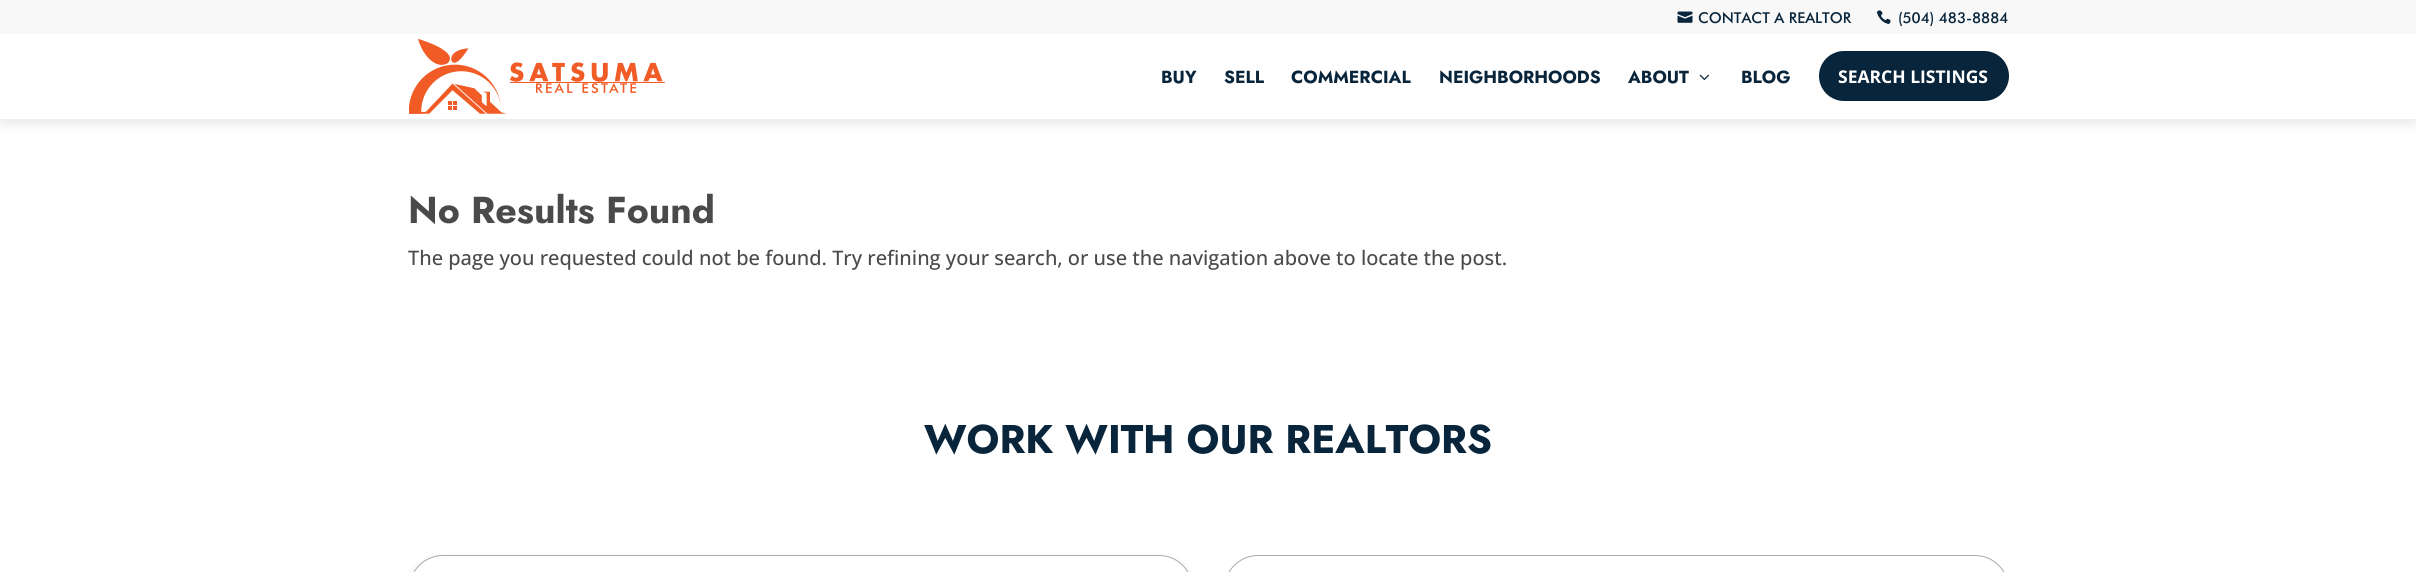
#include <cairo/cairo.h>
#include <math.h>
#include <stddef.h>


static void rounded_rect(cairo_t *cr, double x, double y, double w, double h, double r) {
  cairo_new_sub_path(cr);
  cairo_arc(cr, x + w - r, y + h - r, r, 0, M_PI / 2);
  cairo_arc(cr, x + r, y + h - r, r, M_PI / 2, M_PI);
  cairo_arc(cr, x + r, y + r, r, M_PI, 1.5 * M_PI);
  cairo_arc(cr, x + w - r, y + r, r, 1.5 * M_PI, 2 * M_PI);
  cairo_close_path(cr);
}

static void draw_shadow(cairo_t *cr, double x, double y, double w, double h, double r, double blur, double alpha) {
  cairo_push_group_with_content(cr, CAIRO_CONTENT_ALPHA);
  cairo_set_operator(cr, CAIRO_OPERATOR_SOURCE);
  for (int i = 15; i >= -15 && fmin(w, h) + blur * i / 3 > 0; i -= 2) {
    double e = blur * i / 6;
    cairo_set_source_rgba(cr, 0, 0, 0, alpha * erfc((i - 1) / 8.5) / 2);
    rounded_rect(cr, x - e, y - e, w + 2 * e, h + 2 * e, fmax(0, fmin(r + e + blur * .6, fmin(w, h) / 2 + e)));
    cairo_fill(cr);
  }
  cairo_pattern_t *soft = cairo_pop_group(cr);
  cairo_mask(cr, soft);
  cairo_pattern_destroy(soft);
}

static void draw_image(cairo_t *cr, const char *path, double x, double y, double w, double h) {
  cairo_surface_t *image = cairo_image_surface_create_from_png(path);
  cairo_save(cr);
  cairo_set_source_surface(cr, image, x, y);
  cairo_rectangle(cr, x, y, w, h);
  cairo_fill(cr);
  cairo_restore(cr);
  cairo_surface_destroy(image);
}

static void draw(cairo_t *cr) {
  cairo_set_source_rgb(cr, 1, 1, 1);
  cairo_paint(cr);
  cairo_set_source_rgb(cr, 248 / 255.0, 248 / 255.0, 248 / 255.0);
  cairo_rectangle(cr, 0, 0, 2416, 34);
  cairo_fill(cr);
  draw_image(cr, "images/1.png", 1677, 11, 16, 12);
  draw_image(cr, "images/2.png", 1876, 10, 15, 14);
  cairo_set_source_rgb(cr, 0, 0, 0);
  draw_shadow(cr, 0, 40, 2416, 85, 0, 5, 0.08);
  cairo_set_source_rgb(cr, 1, 1, 1);
  cairo_rectangle(cr, 0, 34, 2416, 85);
  cairo_fill(cr);
  draw_image(cr, "images/3.png", 409, 39, 256, 75);
  draw_image(cr, "images/4.png", 1699, 74, 10, 6);
  cairo_set_source_rgb(cr, 9 / 255.0, 37 / 255.0, 59 / 255.0);
  rounded_rect(cr, 1819, 51, 190, 50, 25);
  cairo_fill(cr);
  cairo_set_source_rgb(cr, 17 / 255.0, 17 / 255.0, 17 / 255.0);
  draw_shadow(cr, 409, 559, 784, 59, 33.5, 4, 0.08);
  cairo_set_source_rgb(cr, 1, 1, 1);
  rounded_rect(cr, 409.5, 555.5, 783, 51, 33.5);
  cairo_fill_preserve(cr);
  cairo_set_source_rgb(cr, 167 / 255.0, 172 / 255.0, 165 / 255.0);
  cairo_set_line_width(cr, 1);
  cairo_stroke(cr);
  rounded_rect(cr, 1224.5, 555.5, 784, 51, 33.5);
  cairo_stroke(cr);
  cairo_select_font_face(cr, "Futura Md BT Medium", CAIRO_FONT_SLANT_NORMAL, CAIRO_FONT_WEIGHT_NORMAL);
  cairo_set_font_size(cr, 15);
  cairo_set_source_rgb(cr, 9 / 255.0, 37 / 255.0, 59 / 255.0);
  cairo_move_to(cr, 1698, 23);
  cairo_show_text(cr, "CONTACT A REALTOR");
  cairo_move_to(cr, 1898, 23);
  cairo_show_text(cr, "(504) 483-8884");
  cairo_select_font_face(cr, "Jost", CAIRO_FONT_SLANT_NORMAL, CAIRO_FONT_WEIGHT_BOLD);
  cairo_set_font_size(cr, 17.5);
  cairo_move_to(cr, 1161, 83);
  cairo_show_text(cr, "BUY");
  cairo_move_to(cr, 1224, 83);
  cairo_show_text(cr, "SELL");
  cairo_move_to(cr, 1291, 83);
  cairo_show_text(cr, "COMMERCIAL");
  cairo_move_to(cr, 1439, 83);
  cairo_show_text(cr, "NEIGHBORHOODS");
  cairo_move_to(cr, 1628, 83);
  cairo_show_text(cr, "ABOUT");
  cairo_move_to(cr, 1741, 83);
  cairo_show_text(cr, "BLOG");
  cairo_select_font_face(cr, "Open Sans", CAIRO_FONT_SLANT_NORMAL, CAIRO_FONT_WEIGHT_BOLD);
  cairo_set_source_rgb(cr, 1, 1, 1);
  cairo_move_to(cr, 1838, 83);
  cairo_show_text(cr, "SEARCH LISTINGS");
  cairo_select_font_face(cr, "Jost", CAIRO_FONT_SLANT_NORMAL, CAIRO_FONT_WEIGHT_BOLD);
  cairo_set_font_size(cr, 37.5);
  cairo_set_source_rgb(cr, 74 / 255.0, 74 / 255.0, 74 / 255.0);
  cairo_move_to(cr, 408, 223);
  cairo_show_text(cr, "No Results Found");
  cairo_select_font_face(cr, "Open Sans Medium", CAIRO_FONT_SLANT_NORMAL, CAIRO_FONT_WEIGHT_NORMAL);
  cairo_set_font_size(cr, 20);
  cairo_move_to(cr, 408, 265);
  cairo_show_text(cr, "The page you requested could not be found. Try refining your search, or use the navigation above to locate the post.");
  cairo_select_font_face(cr, "Jost", CAIRO_FONT_SLANT_NORMAL, CAIRO_FONT_WEIGHT_BOLD);
  cairo_set_font_size(cr, 40);
  cairo_set_source_rgb(cr, 9 / 255.0, 37 / 255.0, 59 / 255.0);
  cairo_move_to(cr, 924, 453);
  cairo_show_text(cr, "WORK WITH OUR REALTORS");
}

int main(void) {
  cairo_surface_t *surface = cairo_image_surface_create(CAIRO_FORMAT_RGB24, 2416, 572);
  cairo_t *cr = cairo_create(surface);
  cairo_font_options_t *options = cairo_font_options_create();
  cairo_font_options_set_hint_metrics(options, CAIRO_HINT_METRICS_OFF);
  cairo_font_options_set_hint_style(options, CAIRO_HINT_STYLE_NONE);
  cairo_set_font_options(cr, options);
  cairo_set_miter_limit(cr, 4);
  draw(cr);
  cairo_surface_write_to_png(surface, "out.png");
  cairo_font_options_destroy(options);
  cairo_destroy(cr);
  cairo_surface_destroy(surface);
  return 0;
}
